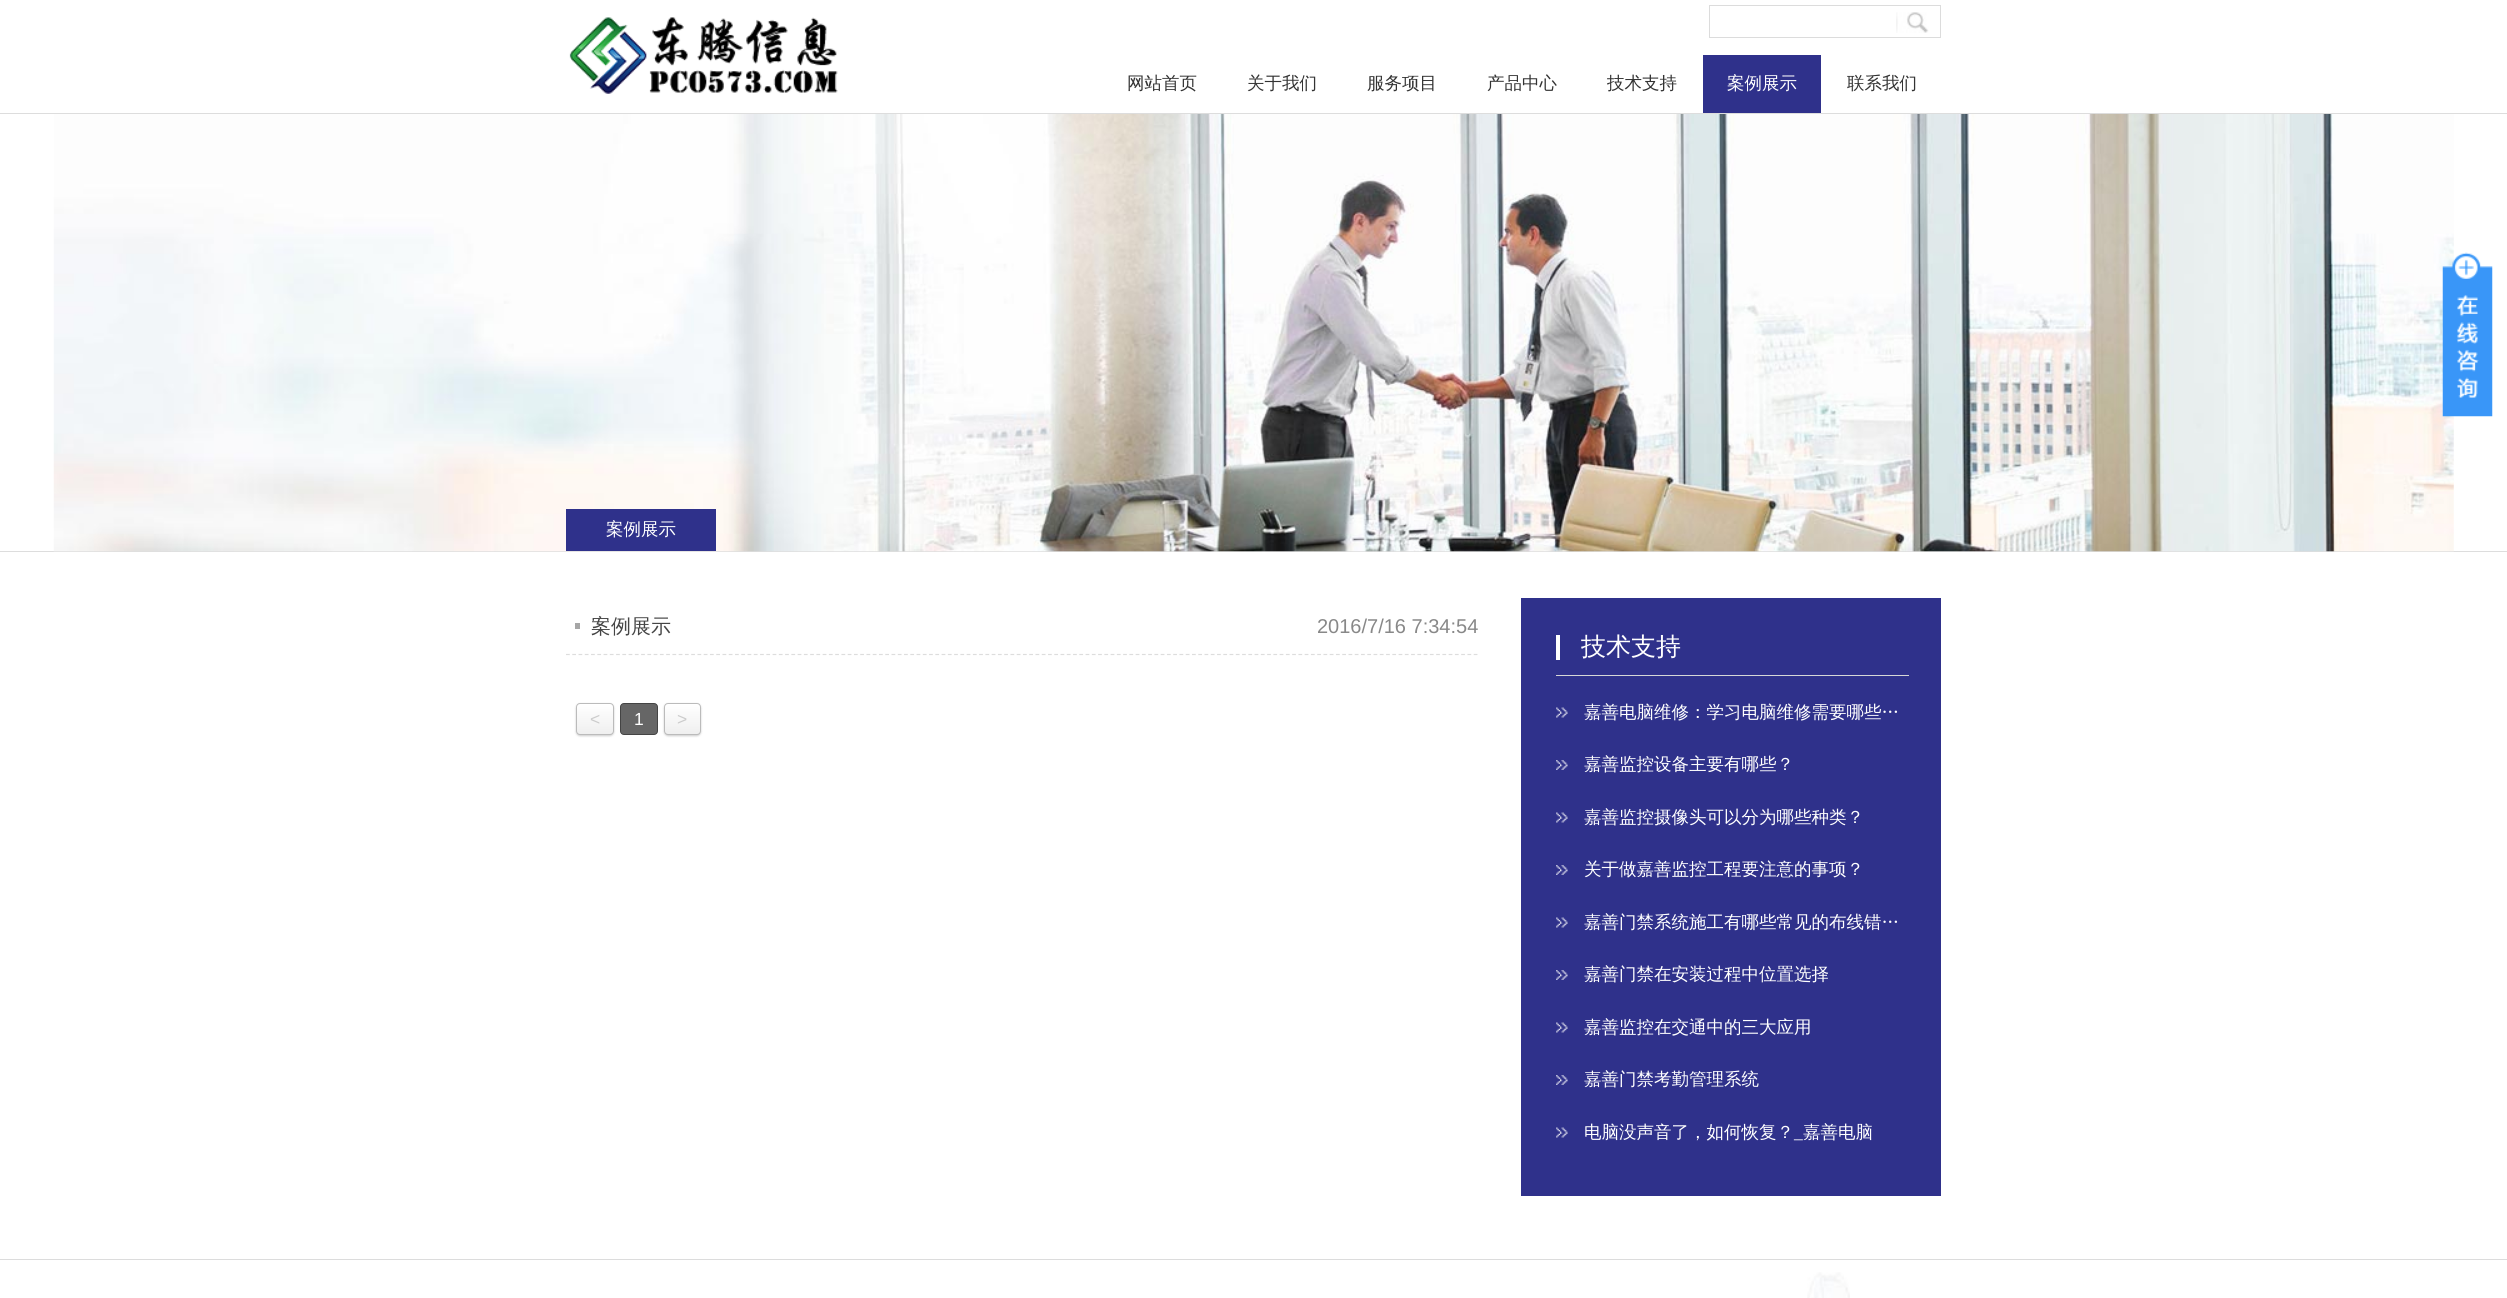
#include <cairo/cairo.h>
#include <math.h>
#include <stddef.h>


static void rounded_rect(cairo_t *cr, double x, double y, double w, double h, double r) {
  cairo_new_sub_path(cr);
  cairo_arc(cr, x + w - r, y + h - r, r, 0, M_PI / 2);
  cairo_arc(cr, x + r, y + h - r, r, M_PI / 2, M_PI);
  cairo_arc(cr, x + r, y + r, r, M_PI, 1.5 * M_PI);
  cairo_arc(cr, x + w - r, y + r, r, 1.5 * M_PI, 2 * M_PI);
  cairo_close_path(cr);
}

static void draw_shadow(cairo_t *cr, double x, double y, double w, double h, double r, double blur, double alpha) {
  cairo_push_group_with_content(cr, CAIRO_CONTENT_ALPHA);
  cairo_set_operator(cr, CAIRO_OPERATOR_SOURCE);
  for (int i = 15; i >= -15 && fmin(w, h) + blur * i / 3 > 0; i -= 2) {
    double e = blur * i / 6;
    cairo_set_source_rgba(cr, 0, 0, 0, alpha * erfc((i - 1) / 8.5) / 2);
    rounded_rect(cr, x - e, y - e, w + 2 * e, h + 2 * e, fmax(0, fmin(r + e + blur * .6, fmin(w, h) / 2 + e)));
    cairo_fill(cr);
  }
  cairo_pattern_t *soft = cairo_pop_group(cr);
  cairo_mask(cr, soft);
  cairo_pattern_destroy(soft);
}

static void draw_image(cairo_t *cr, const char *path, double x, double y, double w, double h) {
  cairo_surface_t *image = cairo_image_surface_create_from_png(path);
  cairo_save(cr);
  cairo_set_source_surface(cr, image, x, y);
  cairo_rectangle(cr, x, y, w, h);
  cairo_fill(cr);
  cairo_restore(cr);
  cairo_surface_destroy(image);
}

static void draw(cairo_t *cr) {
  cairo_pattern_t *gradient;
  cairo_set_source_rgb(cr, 1, 1, 1);
  cairo_paint(cr);
  cairo_set_source_rgb(cr, 221 / 255.0, 221 / 255.0, 221 / 255.0);
  cairo_rectangle(cr, 0, 113, 2507, 1);
  cairo_fill(cr);
  draw_image(cr, "images/1.png", 569, 17, 269, 77);
  cairo_rectangle(cr, 1709.5, 5.5, 231, 32);
  cairo_set_source_rgb(cr, 220 / 255.0, 220 / 255.0, 220 / 255.0);
  cairo_set_line_width(cr, 1);
  cairo_stroke(cr);
  draw_image(cr, "images/2.png", 1896, 12, 33, 21);
  cairo_set_source_rgb(cr, 47 / 255.0, 49 / 255.0, 139 / 255.0);
  cairo_rectangle(cr, 1703, 55, 118, 58);
  cairo_fill(cr);
  cairo_set_source_rgb(cr, 221 / 255.0, 221 / 255.0, 221 / 255.0);
  cairo_rectangle(cr, 0, 551, 2507, 1);
  cairo_fill(cr);
  draw_image(cr, "images/4.png", 53, 114, 2401, 438);
  draw_image(cr, "images/3.png", 2442, 252, 51, 165);
  cairo_set_source_rgb(cr, 47 / 255.0, 49 / 255.0, 139 / 255.0);
  cairo_rectangle(cr, 566, 509, 150, 42);
  cairo_fill(cr);
  cairo_new_path(cr);
  cairo_move_to(cr, 566, 654.5);
  cairo_line_to(cr, 1479, 654.5);
  cairo_set_source_rgb(cr, 221 / 255.0, 221 / 255.0, 221 / 255.0);
  cairo_set_line_width(cr, 1.2);
  cairo_set_dash(cr, (double[]){3.75, 2.51}, 2, 0);
  cairo_stroke(cr);
  cairo_set_source_rgb(cr, 166 / 255.0, 166 / 255.0, 166 / 255.0);
  cairo_rectangle(cr, 575, 623, 5, 6);
  cairo_fill(cr);
  cairo_set_source_rgb(cr, 0, 0, 0);
  draw_shadow(cr, 576, 704, 38, 32, 4, 1, 0.2);
  cairo_save(cr);
  rounded_rect(cr, 576, 703, 38, 32, 4);
  cairo_clip(cr);
  gradient = cairo_pattern_create_linear(595, 704, 595, 734);
  cairo_pattern_add_color_stop_rgba(gradient, 0, 1, 1, 1, 1);
  cairo_pattern_add_color_stop_rgba(gradient, 1, 239 / 255.0, 239 / 255.0, 239 / 255.0, 1);
  cairo_set_source(cr, gradient);
  cairo_pattern_destroy(gradient);
  cairo_rectangle(cr, 576, 704, 38, 30);
  cairo_fill(cr);
  cairo_restore(cr);
  rounded_rect(cr, 576.5, 703.5, 37, 31, 3.5);
  cairo_set_source_rgb(cr, 187 / 255.0, 187 / 255.0, 187 / 255.0);
  cairo_set_line_width(cr, 1);
  cairo_set_dash(cr, NULL, 0, 0);
  cairo_stroke(cr);
  cairo_set_source_rgb(cr, 102 / 255.0, 102 / 255.0, 102 / 255.0);
  rounded_rect(cr, 620.5, 703.5, 37, 31, 3.5);
  cairo_fill_preserve(cr);
  cairo_set_source_rgb(cr, 68 / 255.0, 68 / 255.0, 68 / 255.0);
  cairo_stroke(cr);
  cairo_set_source_rgb(cr, 0, 0, 0);
  draw_shadow(cr, 664, 704, 37, 32, 4, 1, 0.2);
  cairo_save(cr);
  rounded_rect(cr, 664, 703, 37, 32, 4);
  cairo_clip(cr);
  gradient = cairo_pattern_create_linear(683, 704, 683, 734);
  cairo_pattern_add_color_stop_rgba(gradient, 0, 1, 1, 1, 1);
  cairo_pattern_add_color_stop_rgba(gradient, 1, 239 / 255.0, 239 / 255.0, 239 / 255.0, 1);
  cairo_set_source(cr, gradient);
  cairo_pattern_destroy(gradient);
  cairo_rectangle(cr, 664, 704, 37, 30);
  cairo_fill(cr);
  cairo_restore(cr);
  rounded_rect(cr, 664.5, 703.5, 36, 31, 3.5);
  cairo_set_source_rgb(cr, 187 / 255.0, 187 / 255.0, 187 / 255.0);
  cairo_stroke(cr);
  cairo_set_source_rgb(cr, 47 / 255.0, 49 / 255.0, 139 / 255.0);
  cairo_rectangle(cr, 1521, 598, 420, 598);
  cairo_fill(cr);
  cairo_set_source_rgb(cr, 215 / 255.0, 215 / 255.0, 215 / 255.0);
  cairo_rectangle(cr, 1556, 675, 353, 1);
  cairo_fill(cr);
  cairo_set_source_rgb(cr, 1, 1, 1);
  cairo_rectangle(cr, 1556, 635, 4, 25);
  cairo_fill(cr);
  draw_image(cr, "images/5.png", 1556, 707, 12, 11);
  draw_image(cr, "images/6.png", 1556, 760, 12, 10);
  draw_image(cr, "images/5.png", 1556, 812, 12, 11);
  draw_image(cr, "images/6.png", 1556, 865, 12, 10);
  draw_image(cr, "images/5.png", 1556, 917, 12, 11);
  draw_image(cr, "images/6.png", 1556, 970, 12, 10);
  draw_image(cr, "images/7.png", 1556, 1022, 12, 11);
  draw_image(cr, "images/6.png", 1556, 1075, 12, 10);
  draw_image(cr, "images/5.png", 1556, 1127, 12, 11);
  cairo_set_source_rgb(cr, 220 / 255.0, 220 / 255.0, 220 / 255.0);
  cairo_rectangle(cr, 0, 1259, 2507, 1);
  cairo_fill(cr);
  draw_image(cr, "images/8.png", 1807, 1272, 43, 26);
  cairo_select_font_face(cr, "WenQuanYi Zen Hei Medium", CAIRO_FONT_SLANT_NORMAL, CAIRO_FONT_WEIGHT_NORMAL);
  cairo_set_font_size(cr, 17.5);
  cairo_set_source_rgb(cr, 51 / 255.0, 51 / 255.0, 51 / 255.0);
  cairo_move_to(cr, 1127, 89);
  cairo_show_text(cr, "网站首页");
  cairo_move_to(cr, 1247, 89);
  cairo_show_text(cr, "关于我们");
  cairo_move_to(cr, 1367, 89);
  cairo_show_text(cr, "服务项目");
  cairo_move_to(cr, 1487, 89);
  cairo_show_text(cr, "产品中心");
  cairo_move_to(cr, 1607, 89);
  cairo_show_text(cr, "技术支持");
  cairo_set_source_rgb(cr, 1, 1, 1);
  cairo_move_to(cr, 1727, 89);
  cairo_show_text(cr, "案例展示");
  cairo_set_source_rgb(cr, 51 / 255.0, 51 / 255.0, 51 / 255.0);
  cairo_move_to(cr, 1847, 89);
  cairo_show_text(cr, "联系我们");
  cairo_set_source_rgb(cr, 1, 1, 1);
  cairo_move_to(cr, 606, 535);
  cairo_show_text(cr, "案例展示");
  cairo_set_font_size(cr, 20);
  cairo_set_source_rgb(cr, 69 / 255.0, 69 / 255.0, 69 / 255.0);
  cairo_move_to(cr, 591, 633);
  cairo_show_text(cr, "案例展示");
  cairo_select_font_face(cr, "Liberation Sans", CAIRO_FONT_SLANT_NORMAL, CAIRO_FONT_WEIGHT_NORMAL);
  cairo_set_source_rgb(cr, 136 / 255.0, 136 / 255.0, 136 / 255.0);
  cairo_move_to(cr, 1317, 633);
  cairo_show_text(cr, "2016/7/16 7:34:54");
  cairo_set_font_size(cr, 17.5);
  cairo_set_source_rgb(cr, 204 / 255.0, 204 / 255.0, 204 / 255.0);
  cairo_move_to(cr, 590, 725);
  cairo_show_text(cr, "<");
  cairo_set_source_rgb(cr, 1, 1, 1);
  cairo_move_to(cr, 634, 725);
  cairo_show_text(cr, "1");
  cairo_set_source_rgb(cr, 204 / 255.0, 204 / 255.0, 204 / 255.0);
  cairo_move_to(cr, 677, 725);
  cairo_show_text(cr, ">");
  cairo_select_font_face(cr, "WenQuanYi Zen Hei Medium", CAIRO_FONT_SLANT_NORMAL, CAIRO_FONT_WEIGHT_NORMAL);
  cairo_set_font_size(cr, 25);
  cairo_set_source_rgb(cr, 1, 1, 1);
  cairo_move_to(cr, 1581, 655);
  cairo_show_text(cr, "技术支持");
  cairo_set_font_size(cr, 17.5);
  cairo_move_to(cr, 1584, 718);
  cairo_show_text(cr, "嘉善电脑维修：学习电脑维修需要哪些…");
  cairo_move_to(cr, 1584, 770);
  cairo_show_text(cr, "嘉善监控设备主要有哪些？");
  cairo_move_to(cr, 1584, 823);
  cairo_show_text(cr, "嘉善监控摄像头可以分为哪些种类？");
  cairo_move_to(cr, 1584, 875);
  cairo_show_text(cr, "关于做嘉善监控工程要注意的事项？");
  cairo_move_to(cr, 1584, 928);
  cairo_show_text(cr, "嘉善门禁系统施工有哪些常见的布线错…");
  cairo_move_to(cr, 1584, 980);
  cairo_show_text(cr, "嘉善门禁在安装过程中位置选择");
  cairo_move_to(cr, 1584, 1033);
  cairo_show_text(cr, "嘉善监控在交通中的三大应用");
  cairo_move_to(cr, 1584, 1085);
  cairo_show_text(cr, "嘉善门禁考勤管理系统");
  cairo_move_to(cr, 1584, 1138);
  cairo_show_text(cr, "电脑没声音了，如何恢复？");
  cairo_select_font_face(cr, "Liberation Serif", CAIRO_FONT_SLANT_NORMAL, CAIRO_FONT_WEIGHT_NORMAL);
  cairo_move_to(cr, 1794, 1138);
  cairo_show_text(cr, "_");
  cairo_select_font_face(cr, "WenQuanYi Zen Hei Medium", CAIRO_FONT_SLANT_NORMAL, CAIRO_FONT_WEIGHT_NORMAL);
  cairo_move_to(cr, 1803, 1138);
  cairo_show_text(cr, "嘉善电脑");
}

int main(void) {
  cairo_surface_t *surface = cairo_image_surface_create(CAIRO_FORMAT_RGB24, 2507, 1298);
  cairo_t *cr = cairo_create(surface);
  cairo_font_options_t *options = cairo_font_options_create();
  cairo_font_options_set_hint_metrics(options, CAIRO_HINT_METRICS_OFF);
  cairo_font_options_set_hint_style(options, CAIRO_HINT_STYLE_NONE);
  cairo_set_font_options(cr, options);
  cairo_set_miter_limit(cr, 4);
  draw(cr);
  cairo_surface_write_to_png(surface, "out.png");
  cairo_font_options_destroy(options);
  cairo_destroy(cr);
  cairo_surface_destroy(surface);
  return 0;
}
